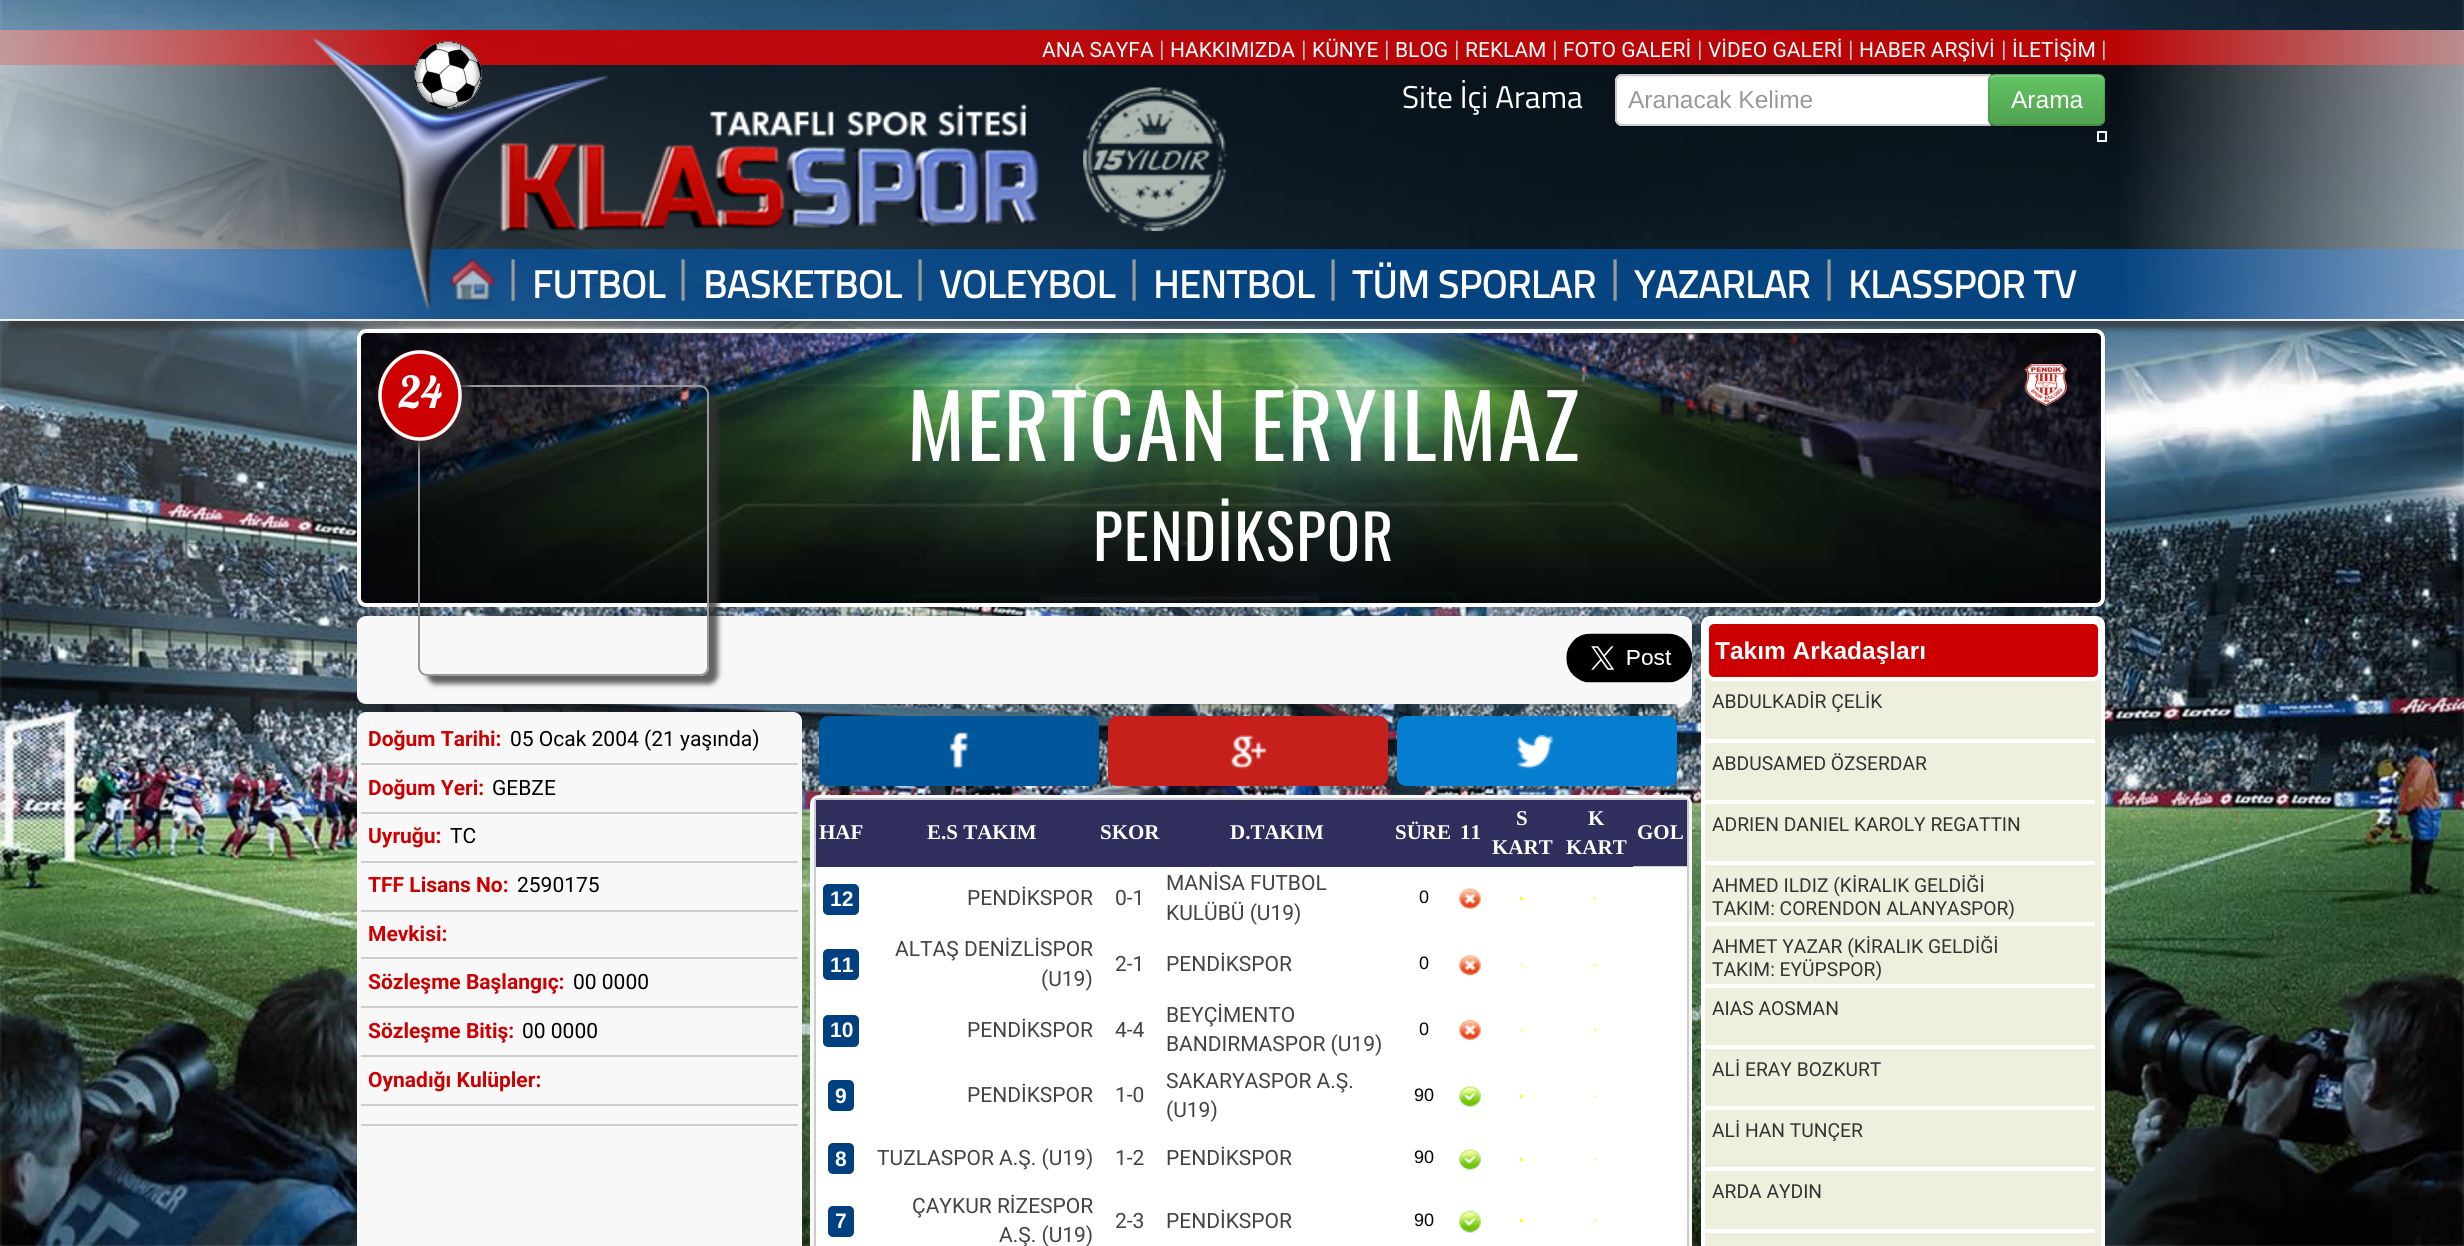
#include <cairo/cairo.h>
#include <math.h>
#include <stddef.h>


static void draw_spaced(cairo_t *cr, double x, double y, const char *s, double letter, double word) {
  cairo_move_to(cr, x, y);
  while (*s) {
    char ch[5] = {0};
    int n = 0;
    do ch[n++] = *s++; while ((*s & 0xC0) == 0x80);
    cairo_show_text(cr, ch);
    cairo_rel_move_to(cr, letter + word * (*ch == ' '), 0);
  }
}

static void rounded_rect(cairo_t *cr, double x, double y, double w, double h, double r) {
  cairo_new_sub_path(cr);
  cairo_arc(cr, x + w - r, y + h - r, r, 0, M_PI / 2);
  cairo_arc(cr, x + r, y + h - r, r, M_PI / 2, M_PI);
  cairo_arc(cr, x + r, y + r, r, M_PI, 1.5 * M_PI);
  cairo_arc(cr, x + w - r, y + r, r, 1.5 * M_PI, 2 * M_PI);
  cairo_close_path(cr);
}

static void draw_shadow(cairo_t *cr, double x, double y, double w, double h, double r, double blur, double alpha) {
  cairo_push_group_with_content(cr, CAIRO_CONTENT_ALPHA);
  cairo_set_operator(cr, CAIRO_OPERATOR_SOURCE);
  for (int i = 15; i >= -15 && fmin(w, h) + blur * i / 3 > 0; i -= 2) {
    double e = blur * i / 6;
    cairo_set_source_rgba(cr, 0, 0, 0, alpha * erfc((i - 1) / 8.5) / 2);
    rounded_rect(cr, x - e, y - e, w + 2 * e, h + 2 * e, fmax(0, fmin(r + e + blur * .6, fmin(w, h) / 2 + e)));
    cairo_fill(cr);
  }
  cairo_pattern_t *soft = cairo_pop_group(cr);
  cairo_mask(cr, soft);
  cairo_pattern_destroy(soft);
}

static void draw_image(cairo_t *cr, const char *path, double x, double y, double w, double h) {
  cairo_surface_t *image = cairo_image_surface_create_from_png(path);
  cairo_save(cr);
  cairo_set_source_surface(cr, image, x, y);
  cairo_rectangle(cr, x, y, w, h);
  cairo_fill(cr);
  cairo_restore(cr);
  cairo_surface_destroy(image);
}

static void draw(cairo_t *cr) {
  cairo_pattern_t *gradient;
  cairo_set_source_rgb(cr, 1, 1, 1);
  cairo_paint(cr);
  draw_image(cr, "images/1.png", 0, 0, 2464, 1246);
  cairo_save(cr);
  cairo_rectangle(cr, 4, 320, 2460, 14);
  cairo_clip(cr);
  cairo_set_source_rgb(cr, 50 / 255.0, 50 / 255.0, 50 / 255.0);
  draw_shadow(cr, 9, 257, 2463, 72, 0, 2.5, 0.68);
  cairo_restore(cr);
  draw_image(cr, "images/2.png", 313, 37, 727, 275);
  draw_image(cr, "images/3.png", 414, 41, 68, 68);
  draw_image(cr, "images/4.png", 1083, 87, 144, 144);
  cairo_set_source_rgb(cr, 1, 1, 1);
  rounded_rect(cr, 1615, 74, 380, 52, 7);
  cairo_fill(cr);
  cairo_set_source_rgb(cr, 236 / 255.0, 236 / 255.0, 236 / 255.0);
  cairo_new_path(cr);
  cairo_move_to(cr, 1622, 77);
  cairo_line_to(cr, 1988, 77);
  cairo_curve_to(cr, 1991, 77, 1993, 79, 1993, 82);
  cairo_line_to(cr, 1993, 80);
  cairo_curve_to(cr, 1993, 77, 1991, 75, 1988, 75);
  cairo_line_to(cr, 1622, 75);
  cairo_curve_to(cr, 1619, 75, 1617, 77, 1617, 80);
  cairo_line_to(cr, 1617, 82);
  cairo_curve_to(cr, 1617, 79, 1619, 77, 1622, 77);
  cairo_close_path(cr);
  cairo_fill(cr);
  rounded_rect(cr, 1616, 75, 378, 50, 6);
  cairo_set_source_rgb(cr, 204 / 255.0, 204 / 255.0, 204 / 255.0);
  cairo_stroke(cr);
  cairo_rectangle(cr, 2098, 132, 8, 9);
  cairo_set_source_rgb(cr, 248 / 255.0, 248 / 255.0, 248 / 255.0);
  cairo_stroke(cr);
  cairo_set_source_rgb(cr, 0, 0, 0);
  draw_shadow(cr, 1988, 75, 117, 53, 7, 2, 0.05);
  cairo_set_source_rgb(cr, 91 / 255.0, 183 / 255.0, 91 / 255.0);
  rounded_rect(cr, 1988, 74, 117, 52, 7);
  cairo_fill(cr);
  cairo_save(cr);
  rounded_rect(cr, 1988, 74, 117, 52, 7);
  cairo_clip(cr);
  gradient = cairo_pattern_create_linear(2047, 75, 2047, 124);
  cairo_pattern_add_color_stop_rgba(gradient, 0, 98 / 255.0, 196 / 255.0, 98 / 255.0, 1);
  cairo_pattern_add_color_stop_rgba(gradient, 1, 81 / 255.0, 163 / 255.0, 81 / 255.0, 1);
  cairo_set_source(cr, gradient);
  cairo_pattern_destroy(gradient);
  cairo_rectangle(cr, 1988, 75, 117, 49);
  cairo_fill(cr);
  cairo_restore(cr);
  cairo_set_source_rgba(cr, 1, 1, 1, 0.2);
  cairo_new_path(cr);
  cairo_move_to(cr, 1995, 77);
  cairo_line_to(cr, 2098, 77);
  cairo_curve_to(cr, 2101, 77, 2104, 79, 2104, 82);
  cairo_line_to(cr, 2104, 80);
  cairo_curve_to(cr, 2104, 77, 2102, 75, 2099, 75);
  cairo_line_to(cr, 1995, 75);
  cairo_curve_to(cr, 1992, 75, 1990, 77, 1990, 80);
  cairo_line_to(cr, 1990, 82);
  cairo_curve_to(cr, 1990, 79, 1992, 77, 1995, 77);
  cairo_close_path(cr);
  cairo_fill(cr);
  cairo_new_path(cr);
  cairo_move_to(cr, 2102.5, 123.5);
  cairo_curve_to(cr, 2101.5, 124.5, 2100, 125, 2098, 125);
  cairo_line_to(cr, 1995, 125);
  cairo_curve_to(cr, 1993.5, 125, 1992, 124.5, 1990.5, 123.5);
  cairo_set_source_rgba(cr, 0, 0, 0, 0.25);
  cairo_set_line_width(cr, 1.8);
  cairo_stroke(cr);
  cairo_new_path(cr);
  cairo_move_to(cr, 1990.5, 123.5);
  cairo_curve_to(cr, 1988, 120.5, 1989, 116, 1989, 112.5);
  cairo_line_to(cr, 1989, 100);
  cairo_curve_to(cr, 1989, 72, 1984.5, 74.5, 2012, 74.5);
  cairo_line_to(cr, 2081, 74.5);
  cairo_curve_to(cr, 2109, 74.5, 2104.5, 72, 2104.5, 100);
  cairo_line_to(cr, 2104.5, 112.5);
  cairo_curve_to(cr, 2104.5, 116, 2105.5, 120.5, 2102.5, 123.5);
  cairo_set_source_rgba(cr, 0, 0, 0, 0.1);
  cairo_stroke(cr);
  cairo_set_source_rgba(cr, 1, 1, 1, 0.9);
  cairo_rectangle(cr, 0, 319, 2464, 2);
  cairo_fill(cr);
  draw_image(cr, "images/5.png", 451, 258, 43, 43);
  draw_image(cr, "images/6.png", 357, 329, 1749, 275);
  rounded_rect(cr, 359, 331, 1744, 274, 7);
  cairo_set_source_rgb(cr, 1, 1, 1);
  cairo_set_line_width(cr, 4);
  cairo_stroke(cr);
  cairo_set_source_rgb(cr, 248 / 255.0, 248 / 255.0, 248 / 255.0);
  rounded_rect(cr, 357, 616, 1335, 88, 9);
  cairo_fill(cr);
  cairo_save(cr);
  cairo_set_fill_rule(cr, CAIRO_FILL_RULE_EVEN_ODD);
  cairo_new_path(cr);
  cairo_move_to(cr, 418, 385);
  cairo_line_to(cr, 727, 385);
  cairo_line_to(cr, 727, 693);
  cairo_line_to(cr, 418, 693);
  cairo_close_path(cr);
  cairo_move_to(cr, 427, 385);
  cairo_line_to(cr, 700, 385);
  cairo_curve_to(cr, 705, 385, 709, 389, 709, 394);
  cairo_line_to(cr, 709, 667);
  cairo_curve_to(cr, 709, 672, 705, 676, 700, 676);
  cairo_line_to(cr, 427, 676);
  cairo_curve_to(cr, 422, 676, 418, 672, 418, 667);
  cairo_line_to(cr, 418, 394);
  cairo_curve_to(cr, 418, 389, 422, 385, 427, 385);
  cairo_close_path(cr);
  cairo_clip(cr);
  cairo_set_source_rgb(cr, 50 / 255.0, 50 / 255.0, 50 / 255.0);
  draw_shadow(cr, 427, 394, 291, 290, 9, 2.5, 0.75);
  cairo_restore(cr);
  rounded_rect(cr, 419, 386, 289, 289, 8);
  cairo_set_source_rgb(cr, 153 / 255.0, 153 / 255.0, 153 / 255.0);
  cairo_set_line_width(cr, 2);
  cairo_stroke(cr);
  cairo_set_source_rgb(cr, 50 / 255.0, 50 / 255.0, 50 / 255.0);
  draw_shadow(cr, 387, 359, 84, 91, 42, 2.5, 0.75);
  cairo_set_source_rgb(cr, 204 / 255.0, 0, 0);
  cairo_new_path(cr);
  cairo_move_to(cr, 420, 350);
  cairo_curve_to(cr, 443, 350, 462, 370.5, 462, 395.5);
  cairo_curve_to(cr, 462, 420.5, 443, 441, 420, 441);
  cairo_curve_to(cr, 397, 441, 378, 420.5, 378, 395.5);
  cairo_curve_to(cr, 378, 370.5, 397, 350, 420, 350);
  cairo_close_path(cr);
  cairo_fill(cr);
  cairo_new_path(cr);
  cairo_move_to(cr, 420, 352);
  cairo_curve_to(cr, 442, 352, 460, 371.5, 460, 395.5);
  cairo_curve_to(cr, 460, 419.5, 442, 439, 420, 439);
  cairo_curve_to(cr, 398, 439, 380, 419.5, 380, 395.5);
  cairo_curve_to(cr, 380, 371.5, 398, 352, 420, 352);
  cairo_close_path(cr);
  cairo_set_source_rgb(cr, 1, 1, 1);
  cairo_set_line_width(cr, 3.5);
  cairo_stroke(cr);
  draw_image(cr, "images/7.png", 2024, 364, 43, 42);
  draw_image(cr, "images/8.png", 1566, 633, 127, 50);
  cairo_set_source_rgb(cr, 248 / 255.0, 248 / 255.0, 248 / 255.0);
  rounded_rect(cr, 359, 714, 441, 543, 7);
  cairo_fill_preserve(cr);
  cairo_set_line_width(cr, 4);
  cairo_stroke(cr);
  cairo_set_source_rgb(cr, 204 / 255.0, 204 / 255.0, 204 / 255.0);
  cairo_rectangle(cr, 361, 763, 437, 2);
  cairo_fill(cr);
  cairo_rectangle(cr, 361, 812, 437, 2);
  cairo_fill(cr);
  cairo_rectangle(cr, 361, 861, 437, 2);
  cairo_fill(cr);
  cairo_rectangle(cr, 361, 910, 437, 2);
  cairo_fill(cr);
  cairo_rectangle(cr, 361, 957, 437, 2);
  cairo_fill(cr);
  cairo_rectangle(cr, 361, 1006, 437, 2);
  cairo_fill(cr);
  cairo_rectangle(cr, 361, 1055, 437, 2);
  cairo_fill(cr);
  cairo_rectangle(cr, 361, 1104, 437, 2);
  cairo_fill(cr);
  cairo_rectangle(cr, 361, 1124, 437, 2);
  cairo_fill(cr);
  cairo_set_source_rgb(cr, 0, 86 / 255.0, 154 / 255.0);
  rounded_rect(cr, 819, 716, 280, 70, 9);
  cairo_fill(cr);
  draw_image(cr, "images/9.png", 949, 731, 20, 38);
  cairo_set_source_rgb(cr, 199 / 255.0, 32 / 255.0, 28 / 255.0);
  rounded_rect(cr, 1108, 716, 280, 70, 9);
  cairo_fill(cr);
  draw_image(cr, "images/10.png", 1230, 735, 37, 34);
  cairo_set_source_rgb(cr, 5 / 255.0, 126 / 255.0, 208 / 255.0);
  rounded_rect(cr, 1397, 716, 280, 70, 9);
  cairo_fill(cr);
  draw_image(cr, "images/11.png", 1516, 735, 39, 34);
  cairo_set_source_rgb(cr, 1, 1, 1);
  rounded_rect(cr, 812, 797, 878, 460, 7);
  cairo_fill_preserve(cr);
  cairo_set_source_rgb(cr, 248 / 255.0, 248 / 255.0, 248 / 255.0);
  cairo_stroke(cr);
  cairo_set_source_rgb(cr, 48 / 255.0, 46 / 255.0, 93 / 255.0);
  cairo_rectangle(cr, 815, 799, 52, 68);
  cairo_fill(cr);
  draw_image(cr, "images/12.png", 1633, 799, 56, 68);
  cairo_save(cr);
  rounded_rect(cr, 814, 798, 875, 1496, 5);
  cairo_clip(cr);
  cairo_set_source_rgb(cr, 204 / 255.0, 204 / 255.0, 204 / 255.0);
  cairo_rectangle(cr, 814, 798, 875, 2);
  cairo_fill(cr);
  cairo_rectangle(cr, 1687, 798, 2, 448);
  cairo_fill(cr);
  cairo_rectangle(cr, 814, 798, 2, 448);
  cairo_fill(cr);
  cairo_restore(cr);
  cairo_rectangle(cr, 867, 800, 766, 67);
  cairo_fill(cr);
  cairo_set_source_rgb(cr, 0, 64 / 255.0, 128 / 255.0);
  rounded_rect(cr, 823, 884, 36, 31, 5);
  cairo_fill(cr);
  draw_image(cr, "images/13.png", 1459, 888, 22, 21);
  cairo_set_source_rgb(cr, 1, 1, 25 / 255.0);
  cairo_rectangle(cr, 1520, 897, 3, 3);
  cairo_fill(cr);
  draw_image(cr, "images/14.png", 1594, 897, 2, 3);
  cairo_set_source_rgb(cr, 0, 64 / 255.0, 128 / 255.0);
  rounded_rect(cr, 823, 949, 36, 31, 5);
  cairo_fill(cr);
  draw_image(cr, "images/15.png", 1459, 955, 22, 21);
  draw_image(cr, "images/16.png", 1520, 964, 3, 2);
  draw_image(cr, "images/17.png", 1594, 964, 2, 2);
  rounded_rect(cr, 823, 1015, 36, 32, 5);
  cairo_fill(cr);
  draw_image(cr, "images/18.png", 1459, 1019, 22, 22);
  draw_image(cr, "images/19.png", 1520, 1029, 3, 2);
  draw_image(cr, "images/20.png", 1594, 1029, 2, 2);
  rounded_rect(cr, 828, 1080, 26, 31, 5);
  cairo_fill(cr);
  draw_image(cr, "images/21.png", 1459, 1086, 22, 21);
  cairo_set_source_rgb(cr, 1, 1, 25 / 255.0);
  cairo_rectangle(cr, 1520, 1095, 3, 3);
  cairo_fill(cr);
  draw_image(cr, "images/22.png", 1594, 1095, 2, 3);
  cairo_set_source_rgb(cr, 0, 64 / 255.0, 128 / 255.0);
  rounded_rect(cr, 828, 1143, 26, 31, 5);
  cairo_fill(cr);
  draw_image(cr, "images/21.png", 1459, 1149, 22, 21);
  cairo_set_source_rgb(cr, 1, 1, 25 / 255.0);
  cairo_rectangle(cr, 1520, 1158, 3, 3);
  cairo_fill(cr);
  draw_image(cr, "images/22.png", 1594, 1158, 2, 3);
  cairo_set_source_rgb(cr, 0, 64 / 255.0, 128 / 255.0);
  rounded_rect(cr, 828, 1206, 26, 31, 5);
  cairo_fill(cr);
  draw_image(cr, "images/23.png", 1459, 1210, 22, 23);
  cairo_set_source_rgb(cr, 1, 1, 25 / 255.0);
  cairo_rectangle(cr, 1520, 1219, 3, 3);
  cairo_fill(cr);
  draw_image(cr, "images/14.png", 1594, 1219, 2, 3);
  cairo_set_source_rgb(cr, 239 / 255.0, 239 / 255.0, 222 / 255.0);
  rounded_rect(cr, 1703, 618, 400, 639, 7);
  cairo_fill_preserve(cr);
  cairo_set_source_rgb(cr, 1, 1, 1);
  cairo_stroke(cr);
  cairo_set_source_rgb(cr, 204 / 255.0, 0, 0);
  rounded_rect(cr, 1707, 622, 393, 57, 7);
  cairo_fill_preserve(cr);
  cairo_set_source_rgb(cr, 1, 1, 1);
  cairo_stroke(cr);
  cairo_rectangle(cr, 1705, 739, 390, 4);
  cairo_fill(cr);
  cairo_rectangle(cr, 1705, 800, 390, 4);
  cairo_fill(cr);
  cairo_rectangle(cr, 1705, 861, 390, 4);
  cairo_fill(cr);
  cairo_rectangle(cr, 1705, 922, 390, 4);
  cairo_fill(cr);
  cairo_rectangle(cr, 1705, 984, 390, 4);
  cairo_fill(cr);
  cairo_rectangle(cr, 1705, 1045, 390, 4);
  cairo_fill(cr);
  cairo_rectangle(cr, 1705, 1106, 390, 4);
  cairo_fill(cr);
  cairo_rectangle(cr, 1705, 1167, 390, 4);
  cairo_fill(cr);
  cairo_rectangle(cr, 1705, 1229, 390, 4);
  cairo_fill(cr);
  cairo_select_font_face(cr, "Roboto", CAIRO_FONT_SLANT_NORMAL, CAIRO_FONT_WEIGHT_NORMAL);
  cairo_set_font_size(cr, 21);
  cairo_move_to(cr, 1042, 57);
  cairo_show_text(cr, "ANA SAYFA");
  cairo_set_font_size(cr, 23);
  cairo_set_source_rgb(cr, 195 / 255.0, 195 / 255.0, 195 / 255.0);
  cairo_move_to(cr, 1159, 57);
  cairo_show_text(cr, "|");
  cairo_set_font_size(cr, 21);
  cairo_set_source_rgb(cr, 1, 1, 1);
  cairo_move_to(cr, 1170, 57);
  cairo_show_text(cr, "HAKKIMIZDA");
  cairo_set_font_size(cr, 23);
  cairo_set_source_rgb(cr, 195 / 255.0, 195 / 255.0, 195 / 255.0);
  cairo_move_to(cr, 1301, 57);
  cairo_show_text(cr, "|");
  cairo_set_font_size(cr, 21);
  cairo_set_source_rgb(cr, 1, 1, 1);
  cairo_move_to(cr, 1312, 57);
  cairo_show_text(cr, "KÜNYE");
  cairo_set_font_size(cr, 23);
  cairo_set_source_rgb(cr, 195 / 255.0, 195 / 255.0, 195 / 255.0);
  cairo_move_to(cr, 1384, 57);
  cairo_show_text(cr, "|");
  cairo_set_font_size(cr, 21);
  cairo_set_source_rgb(cr, 1, 1, 1);
  cairo_move_to(cr, 1395, 57);
  cairo_show_text(cr, "BLOG");
  cairo_set_font_size(cr, 23);
  cairo_set_source_rgb(cr, 195 / 255.0, 195 / 255.0, 195 / 255.0);
  cairo_move_to(cr, 1454, 57);
  cairo_show_text(cr, "|");
  cairo_set_font_size(cr, 21);
  cairo_set_source_rgb(cr, 1, 1, 1);
  cairo_move_to(cr, 1465, 57);
  cairo_show_text(cr, "REKLAM");
  cairo_set_font_size(cr, 23);
  cairo_set_source_rgb(cr, 195 / 255.0, 195 / 255.0, 195 / 255.0);
  cairo_move_to(cr, 1552, 57);
  cairo_show_text(cr, "|");
  cairo_set_font_size(cr, 21);
  cairo_set_source_rgb(cr, 1, 1, 1);
  cairo_move_to(cr, 1563, 57);
  cairo_show_text(cr, "FOTO GALERİ");
  cairo_set_font_size(cr, 23);
  cairo_set_source_rgb(cr, 195 / 255.0, 195 / 255.0, 195 / 255.0);
  cairo_move_to(cr, 1697, 57);
  cairo_show_text(cr, "|");
  cairo_set_font_size(cr, 21);
  cairo_set_source_rgb(cr, 1, 1, 1);
  cairo_move_to(cr, 1708, 57);
  cairo_show_text(cr, "VİDEO GALERİ");
  cairo_set_font_size(cr, 23);
  cairo_set_source_rgb(cr, 195 / 255.0, 195 / 255.0, 195 / 255.0);
  cairo_move_to(cr, 1848, 57);
  cairo_show_text(cr, "|");
  cairo_set_font_size(cr, 21);
  cairo_set_source_rgb(cr, 1, 1, 1);
  cairo_move_to(cr, 1859, 57);
  cairo_show_text(cr, "HABER ARŞİVİ");
  cairo_set_font_size(cr, 23);
  cairo_set_source_rgb(cr, 195 / 255.0, 195 / 255.0, 195 / 255.0);
  cairo_move_to(cr, 2001, 57);
  cairo_show_text(cr, "|");
  cairo_set_font_size(cr, 21);
  cairo_set_source_rgb(cr, 1, 1, 1);
  cairo_move_to(cr, 2012, 57);
  cairo_show_text(cr, "İLETİŞİM");
  cairo_set_font_size(cr, 23);
  cairo_set_source_rgb(cr, 195 / 255.0, 195 / 255.0, 195 / 255.0);
  cairo_move_to(cr, 2101, 57);
  cairo_show_text(cr, "|");
  cairo_select_font_face(cr, "Titillium Web", CAIRO_FONT_SLANT_NORMAL, CAIRO_FONT_WEIGHT_NORMAL);
  cairo_set_font_size(cr, 31.5);
  cairo_set_source_rgb(cr, 1, 1, 1);
  cairo_move_to(cr, 1402, 108);
  cairo_show_text(cr, "Site İçi Arama");
  cairo_select_font_face(cr, "Liberation Sans", CAIRO_FONT_SLANT_NORMAL, CAIRO_FONT_WEIGHT_NORMAL);
  cairo_set_font_size(cr, 24.5);
  cairo_set_source_rgb(cr, 153 / 255.0, 153 / 255.0, 153 / 255.0);
  cairo_move_to(cr, 1628, 108);
  cairo_show_text(cr, "Aranacak Kelime");
  cairo_set_source_rgb(cr, 1, 1, 1);
  cairo_move_to(cr, 2011, 108);
  cairo_show_text(cr, "Arama");
  cairo_select_font_face(cr, "Titillium Web", CAIRO_FONT_SLANT_NORMAL, CAIRO_FONT_WEIGHT_NORMAL);
  cairo_set_font_size(cr, 44);
  cairo_set_source_rgb(cr, 153 / 255.0, 153 / 255.0, 153 / 255.0);
  cairo_move_to(cr, 508, 291);
  cairo_show_text(cr, "|");
  cairo_select_font_face(cr, "Titillium Web", CAIRO_FONT_SLANT_NORMAL, CAIRO_FONT_WEIGHT_BOLD);
  cairo_set_font_size(cr, 38.5);
  cairo_set_source_rgb(cr, 1, 1, 1);
  cairo_move_to(cr, 532, 298);
  cairo_show_text(cr, "FUTBOL");
  cairo_select_font_face(cr, "Titillium Web", CAIRO_FONT_SLANT_NORMAL, CAIRO_FONT_WEIGHT_NORMAL);
  cairo_set_font_size(cr, 44);
  cairo_set_source_rgb(cr, 153 / 255.0, 153 / 255.0, 153 / 255.0);
  cairo_move_to(cr, 678, 291);
  cairo_show_text(cr, "|");
  cairo_select_font_face(cr, "Titillium Web", CAIRO_FONT_SLANT_NORMAL, CAIRO_FONT_WEIGHT_BOLD);
  cairo_set_font_size(cr, 38.5);
  cairo_set_source_rgb(cr, 1, 1, 1);
  cairo_move_to(cr, 703, 298);
  cairo_show_text(cr, "BASKETBOL");
  cairo_select_font_face(cr, "Titillium Web", CAIRO_FONT_SLANT_NORMAL, CAIRO_FONT_WEIGHT_NORMAL);
  cairo_set_font_size(cr, 44);
  cairo_set_source_rgb(cr, 153 / 255.0, 153 / 255.0, 153 / 255.0);
  cairo_move_to(cr, 915, 291);
  cairo_show_text(cr, "|");
  cairo_select_font_face(cr, "Titillium Web", CAIRO_FONT_SLANT_NORMAL, CAIRO_FONT_WEIGHT_BOLD);
  cairo_set_font_size(cr, 38.5);
  cairo_set_source_rgb(cr, 1, 1, 1);
  cairo_move_to(cr, 939, 298);
  cairo_show_text(cr, "VOLEYBOL");
  cairo_select_font_face(cr, "Titillium Web", CAIRO_FONT_SLANT_NORMAL, CAIRO_FONT_WEIGHT_NORMAL);
  cairo_set_font_size(cr, 44);
  cairo_set_source_rgb(cr, 153 / 255.0, 153 / 255.0, 153 / 255.0);
  cairo_move_to(cr, 1129, 291);
  cairo_show_text(cr, "|");
  cairo_select_font_face(cr, "Titillium Web", CAIRO_FONT_SLANT_NORMAL, CAIRO_FONT_WEIGHT_BOLD);
  cairo_set_font_size(cr, 38.5);
  cairo_set_source_rgb(cr, 1, 1, 1);
  cairo_move_to(cr, 1153, 298);
  cairo_show_text(cr, "HENTBOL");
  cairo_select_font_face(cr, "Titillium Web", CAIRO_FONT_SLANT_NORMAL, CAIRO_FONT_WEIGHT_NORMAL);
  cairo_set_font_size(cr, 44);
  cairo_set_source_rgb(cr, 153 / 255.0, 153 / 255.0, 153 / 255.0);
  cairo_move_to(cr, 1328, 291);
  cairo_show_text(cr, "|");
  cairo_select_font_face(cr, "Titillium Web", CAIRO_FONT_SLANT_NORMAL, CAIRO_FONT_WEIGHT_BOLD);
  cairo_set_font_size(cr, 38.5);
  cairo_set_source_rgb(cr, 1, 1, 1);
  cairo_move_to(cr, 1352, 298);
  cairo_show_text(cr, "TÜM SPORLAR");
  cairo_select_font_face(cr, "Titillium Web", CAIRO_FONT_SLANT_NORMAL, CAIRO_FONT_WEIGHT_NORMAL);
  cairo_set_font_size(cr, 44);
  cairo_set_source_rgb(cr, 153 / 255.0, 153 / 255.0, 153 / 255.0);
  cairo_move_to(cr, 1610, 291);
  cairo_show_text(cr, "|");
  cairo_select_font_face(cr, "Titillium Web", CAIRO_FONT_SLANT_NORMAL, CAIRO_FONT_WEIGHT_BOLD);
  cairo_set_font_size(cr, 38.5);
  cairo_set_source_rgb(cr, 1, 1, 1);
  cairo_move_to(cr, 1634, 298);
  cairo_show_text(cr, "YAZARLAR");
  cairo_select_font_face(cr, "Titillium Web", CAIRO_FONT_SLANT_NORMAL, CAIRO_FONT_WEIGHT_NORMAL);
  cairo_set_font_size(cr, 44);
  cairo_set_source_rgb(cr, 153 / 255.0, 153 / 255.0, 153 / 255.0);
  cairo_move_to(cr, 1824, 291);
  cairo_show_text(cr, "|");
  cairo_select_font_face(cr, "Titillium Web", CAIRO_FONT_SLANT_NORMAL, CAIRO_FONT_WEIGHT_BOLD);
  cairo_set_font_size(cr, 38.5);
  cairo_set_source_rgb(cr, 1, 1, 1);
  cairo_move_to(cr, 1848, 298);
  cairo_show_text(cr, "KLASSPOR TV");
  cairo_select_font_face(cr, "Lobster", CAIRO_FONT_SLANT_NORMAL, CAIRO_FONT_WEIGHT_NORMAL);
  cairo_set_font_size(cr, 44);
  cairo_move_to(cr, 399, 408);
  cairo_show_text(cr, "24");
  cairo_select_font_face(cr, "Oswald", CAIRO_FONT_SLANT_NORMAL, CAIRO_FONT_WEIGHT_NORMAL);
  cairo_set_font_size(cr, 87.5);
  draw_spaced(cr, 907, 461, "MERTCAN ERYILMAZ", 1.75, 0);
  cairo_set_font_size(cr, 61.25);
  draw_spaced(cr, 1093, 561, "PENDİKSPOR", 1.4, 0);
  cairo_select_font_face(cr, "Roboto", CAIRO_FONT_SLANT_NORMAL, CAIRO_FONT_WEIGHT_BOLD);
  cairo_set_font_size(cr, 21);
  cairo_set_source_rgb(cr, 204 / 255.0, 0, 0);
  cairo_move_to(cr, 368, 746);
  cairo_show_text(cr, "Doğum Tarihi:");
  cairo_select_font_face(cr, "Roboto", CAIRO_FONT_SLANT_NORMAL, CAIRO_FONT_WEIGHT_NORMAL);
  cairo_set_source_rgb(cr, 0, 0, 0);
  cairo_move_to(cr, 510, 746);
  cairo_show_text(cr, "05 Ocak 2004 (21 yaşında)");
  cairo_select_font_face(cr, "Roboto", CAIRO_FONT_SLANT_NORMAL, CAIRO_FONT_WEIGHT_BOLD);
  cairo_set_source_rgb(cr, 204 / 255.0, 0, 0);
  cairo_move_to(cr, 368, 795);
  cairo_show_text(cr, "Doğum Yeri:");
  cairo_select_font_face(cr, "Roboto", CAIRO_FONT_SLANT_NORMAL, CAIRO_FONT_WEIGHT_NORMAL);
  cairo_set_source_rgb(cr, 0, 0, 0);
  cairo_move_to(cr, 492, 795);
  cairo_show_text(cr, "GEBZE");
  cairo_select_font_face(cr, "Roboto", CAIRO_FONT_SLANT_NORMAL, CAIRO_FONT_WEIGHT_BOLD);
  cairo_set_source_rgb(cr, 204 / 255.0, 0, 0);
  cairo_move_to(cr, 368, 843);
  cairo_show_text(cr, "Uyruğu:");
  cairo_select_font_face(cr, "Roboto", CAIRO_FONT_SLANT_NORMAL, CAIRO_FONT_WEIGHT_NORMAL);
  cairo_set_source_rgb(cr, 0, 0, 0);
  cairo_move_to(cr, 450, 843);
  cairo_show_text(cr, "TC");
  cairo_select_font_face(cr, "Roboto", CAIRO_FONT_SLANT_NORMAL, CAIRO_FONT_WEIGHT_BOLD);
  cairo_set_source_rgb(cr, 204 / 255.0, 0, 0);
  cairo_move_to(cr, 368, 892);
  cairo_show_text(cr, "TFF Lisans No:");
  cairo_select_font_face(cr, "Roboto", CAIRO_FONT_SLANT_NORMAL, CAIRO_FONT_WEIGHT_NORMAL);
  cairo_set_source_rgb(cr, 0, 0, 0);
  cairo_move_to(cr, 517, 892);
  cairo_show_text(cr, "2590175");
  cairo_select_font_face(cr, "Roboto", CAIRO_FONT_SLANT_NORMAL, CAIRO_FONT_WEIGHT_BOLD);
  cairo_set_source_rgb(cr, 204 / 255.0, 0, 0);
  cairo_move_to(cr, 368, 941);
  cairo_show_text(cr, "Mevkisi:");
  cairo_move_to(cr, 368, 989);
  cairo_show_text(cr, "Sözleşme Başlangıç:");
  cairo_select_font_face(cr, "Roboto", CAIRO_FONT_SLANT_NORMAL, CAIRO_FONT_WEIGHT_NORMAL);
  cairo_set_source_rgb(cr, 0, 0, 0);
  cairo_move_to(cr, 573, 989);
  cairo_show_text(cr, "00 0000");
  cairo_select_font_face(cr, "Roboto", CAIRO_FONT_SLANT_NORMAL, CAIRO_FONT_WEIGHT_BOLD);
  cairo_set_source_rgb(cr, 204 / 255.0, 0, 0);
  cairo_move_to(cr, 368, 1038);
  cairo_show_text(cr, "Sözleşme Bitiş:");
  cairo_select_font_face(cr, "Roboto", CAIRO_FONT_SLANT_NORMAL, CAIRO_FONT_WEIGHT_NORMAL);
  cairo_set_source_rgb(cr, 0, 0, 0);
  cairo_move_to(cr, 522, 1038);
  cairo_show_text(cr, "00 0000");
  cairo_select_font_face(cr, "Roboto", CAIRO_FONT_SLANT_NORMAL, CAIRO_FONT_WEIGHT_BOLD);
  cairo_set_source_rgb(cr, 204 / 255.0, 0, 0);
  cairo_move_to(cr, 368, 1087);
  cairo_show_text(cr, "Oynadığı Kulüpler:");
  cairo_select_font_face(cr, "Liberation Serif", CAIRO_FONT_SLANT_NORMAL, CAIRO_FONT_WEIGHT_BOLD);
  cairo_set_source_rgb(cr, 1, 1, 1);
  cairo_move_to(cr, 819, 839);
  cairo_show_text(cr, "HAF");
  cairo_move_to(cr, 927, 839);
  cairo_show_text(cr, "E.S TAKIM");
  cairo_move_to(cr, 1100, 839);
  cairo_show_text(cr, "SKOR");
  cairo_move_to(cr, 1230, 839);
  cairo_show_text(cr, "D.TAKIM");
  cairo_move_to(cr, 1395, 839);
  cairo_show_text(cr, "SÜRE");
  cairo_move_to(cr, 1460, 839);
  cairo_show_text(cr, "11");
  cairo_move_to(cr, 1516, 825);
  cairo_show_text(cr, "S");
  cairo_move_to(cr, 1492, 854);
  cairo_show_text(cr, "KART");
  cairo_move_to(cr, 1588, 825);
  cairo_show_text(cr, "K");
  cairo_move_to(cr, 1566, 854);
  cairo_show_text(cr, "KART");
  cairo_move_to(cr, 1637, 839);
  cairo_show_text(cr, "GOL");
  cairo_select_font_face(cr, "Liberation Sans", CAIRO_FONT_SLANT_NORMAL, CAIRO_FONT_WEIGHT_BOLD);
  cairo_move_to(cr, 830, 906);
  cairo_show_text(cr, "12");
  cairo_select_font_face(cr, "Roboto", CAIRO_FONT_SLANT_NORMAL, CAIRO_FONT_WEIGHT_NORMAL);
  cairo_set_source_rgb(cr, 69 / 255.0, 66 / 255.0, 66 / 255.0);
  cairo_move_to(cr, 967, 905);
  cairo_show_text(cr, "PENDİKSPOR");
  cairo_move_to(cr, 1115, 905);
  cairo_show_text(cr, "0-1");
  cairo_move_to(cr, 1166, 890);
  cairo_show_text(cr, "MANİSA FUTBOL");
  cairo_move_to(cr, 1166, 920);
  cairo_show_text(cr, "KULÜBÜ (U19)");
  cairo_select_font_face(cr, "Liberation Sans", CAIRO_FONT_SLANT_NORMAL, CAIRO_FONT_WEIGHT_NORMAL);
  cairo_set_font_size(cr, 18);
  cairo_set_source_rgb(cr, 0, 0, 0);
  cairo_move_to(cr, 1419, 903);
  cairo_show_text(cr, "0");
  cairo_select_font_face(cr, "Liberation Sans", CAIRO_FONT_SLANT_NORMAL, CAIRO_FONT_WEIGHT_BOLD);
  cairo_set_font_size(cr, 21);
  cairo_set_source_rgb(cr, 1, 1, 1);
  cairo_move_to(cr, 830, 972);
  cairo_show_text(cr, "11");
  cairo_select_font_face(cr, "Roboto", CAIRO_FONT_SLANT_NORMAL, CAIRO_FONT_WEIGHT_NORMAL);
  cairo_set_source_rgb(cr, 69 / 255.0, 66 / 255.0, 66 / 255.0);
  cairo_move_to(cr, 895, 956);
  cairo_show_text(cr, "ALTAŞ DENİZLİSPOR");
  cairo_move_to(cr, 1041, 986);
  cairo_show_text(cr, "(U19)");
  cairo_move_to(cr, 1115, 971);
  cairo_show_text(cr, "2-1");
  cairo_move_to(cr, 1166, 971);
  cairo_show_text(cr, "PENDİKSPOR");
  cairo_select_font_face(cr, "Liberation Sans", CAIRO_FONT_SLANT_NORMAL, CAIRO_FONT_WEIGHT_NORMAL);
  cairo_set_font_size(cr, 18);
  cairo_set_source_rgb(cr, 0, 0, 0);
  cairo_move_to(cr, 1419, 969);
  cairo_show_text(cr, "0");
  cairo_select_font_face(cr, "Liberation Sans", CAIRO_FONT_SLANT_NORMAL, CAIRO_FONT_WEIGHT_BOLD);
  cairo_set_font_size(cr, 21);
  cairo_set_source_rgb(cr, 1, 1, 1);
  cairo_move_to(cr, 830, 1037);
  cairo_show_text(cr, "10");
  cairo_select_font_face(cr, "Roboto", CAIRO_FONT_SLANT_NORMAL, CAIRO_FONT_WEIGHT_NORMAL);
  cairo_set_source_rgb(cr, 69 / 255.0, 66 / 255.0, 66 / 255.0);
  cairo_move_to(cr, 967, 1037);
  cairo_show_text(cr, "PENDİKSPOR");
  cairo_move_to(cr, 1115, 1037);
  cairo_show_text(cr, "4-4");
  cairo_move_to(cr, 1166, 1022);
  cairo_show_text(cr, "BEYÇİMENTO");
  cairo_move_to(cr, 1166, 1051);
  cairo_show_text(cr, "BANDIRMASPOR (U19)");
  cairo_select_font_face(cr, "Liberation Sans", CAIRO_FONT_SLANT_NORMAL, CAIRO_FONT_WEIGHT_NORMAL);
  cairo_set_font_size(cr, 18);
  cairo_set_source_rgb(cr, 0, 0, 0);
  cairo_move_to(cr, 1419, 1035);
  cairo_show_text(cr, "0");
  cairo_select_font_face(cr, "Liberation Sans", CAIRO_FONT_SLANT_NORMAL, CAIRO_FONT_WEIGHT_BOLD);
  cairo_set_font_size(cr, 21);
  cairo_set_source_rgb(cr, 1, 1, 1);
  cairo_move_to(cr, 835, 1103);
  cairo_show_text(cr, "9");
  cairo_select_font_face(cr, "Roboto", CAIRO_FONT_SLANT_NORMAL, CAIRO_FONT_WEIGHT_NORMAL);
  cairo_set_source_rgb(cr, 69 / 255.0, 66 / 255.0, 66 / 255.0);
  cairo_move_to(cr, 967, 1102);
  cairo_show_text(cr, "PENDİKSPOR");
  cairo_move_to(cr, 1115, 1102);
  cairo_show_text(cr, "1-0");
  cairo_move_to(cr, 1166, 1088);
  cairo_show_text(cr, "SAKARYASPOR A.Ş.");
  cairo_move_to(cr, 1166, 1117);
  cairo_show_text(cr, "(U19)");
  cairo_select_font_face(cr, "Liberation Sans", CAIRO_FONT_SLANT_NORMAL, CAIRO_FONT_WEIGHT_NORMAL);
  cairo_set_font_size(cr, 18);
  cairo_set_source_rgb(cr, 0, 0, 0);
  cairo_move_to(cr, 1414, 1101);
  cairo_show_text(cr, "90");
  cairo_select_font_face(cr, "Liberation Sans", CAIRO_FONT_SLANT_NORMAL, CAIRO_FONT_WEIGHT_BOLD);
  cairo_set_font_size(cr, 21);
  cairo_set_source_rgb(cr, 1, 1, 1);
  cairo_move_to(cr, 835, 1166);
  cairo_show_text(cr, "8");
  cairo_select_font_face(cr, "Roboto", CAIRO_FONT_SLANT_NORMAL, CAIRO_FONT_WEIGHT_NORMAL);
  cairo_set_source_rgb(cr, 69 / 255.0, 66 / 255.0, 66 / 255.0);
  cairo_move_to(cr, 877, 1165);
  cairo_show_text(cr, "TUZLASPOR A.Ş. (U19)");
  cairo_move_to(cr, 1115, 1165);
  cairo_show_text(cr, "1-2");
  cairo_move_to(cr, 1166, 1165);
  cairo_show_text(cr, "PENDİKSPOR");
  cairo_select_font_face(cr, "Liberation Sans", CAIRO_FONT_SLANT_NORMAL, CAIRO_FONT_WEIGHT_NORMAL);
  cairo_set_font_size(cr, 18);
  cairo_set_source_rgb(cr, 0, 0, 0);
  cairo_move_to(cr, 1414, 1163);
  cairo_show_text(cr, "90");
  cairo_select_font_face(cr, "Liberation Sans", CAIRO_FONT_SLANT_NORMAL, CAIRO_FONT_WEIGHT_BOLD);
  cairo_set_font_size(cr, 21);
  cairo_set_source_rgb(cr, 1, 1, 1);
  cairo_move_to(cr, 835, 1228);
  cairo_show_text(cr, "7");
  cairo_select_font_face(cr, "Roboto", CAIRO_FONT_SLANT_NORMAL, CAIRO_FONT_WEIGHT_NORMAL);
  cairo_set_source_rgb(cr, 69 / 255.0, 66 / 255.0, 66 / 255.0);
  cairo_move_to(cr, 912, 1213);
  cairo_show_text(cr, "ÇAYKUR RİZESPOR");
  cairo_move_to(cr, 999, 1242);
  cairo_show_text(cr, "A.Ş. (U19)");
  cairo_move_to(cr, 1115, 1228);
  cairo_show_text(cr, "2-3");
  cairo_move_to(cr, 1166, 1228);
  cairo_show_text(cr, "PENDİKSPOR");
  cairo_select_font_face(cr, "Liberation Sans", CAIRO_FONT_SLANT_NORMAL, CAIRO_FONT_WEIGHT_NORMAL);
  cairo_set_font_size(cr, 18);
  cairo_set_source_rgb(cr, 0, 0, 0);
  cairo_move_to(cr, 1414, 1226);
  cairo_show_text(cr, "90");
  cairo_select_font_face(cr, "Liberation Sans", CAIRO_FONT_SLANT_NORMAL, CAIRO_FONT_WEIGHT_BOLD);
  cairo_set_font_size(cr, 24.5);
  cairo_set_source_rgb(cr, 1, 1, 1);
  cairo_move_to(cr, 1715, 659);
  cairo_show_text(cr, "Takım Arkadaşları");
  cairo_select_font_face(cr, "Roboto", CAIRO_FONT_SLANT_NORMAL, CAIRO_FONT_WEIGHT_NORMAL);
  cairo_set_font_size(cr, 19.25);
  cairo_set_source_rgb(cr, 51 / 255.0, 51 / 255.0, 51 / 255.0);
  cairo_move_to(cr, 1712, 708);
  cairo_show_text(cr, "ABDULKADİR ÇELİK");
  cairo_move_to(cr, 1712, 770);
  cairo_show_text(cr, "ABDUSAMED ÖZSERDAR");
  cairo_move_to(cr, 1712, 831);
  cairo_show_text(cr, "ADRIEN DANIEL KAROLY REGATTIN");
  cairo_move_to(cr, 1712, 892);
  cairo_show_text(cr, "AHMED ILDIZ (KİRALIK GELDİĞİ");
  cairo_move_to(cr, 1712, 915);
  cairo_show_text(cr, "TAKIM: CORENDON ALANYASPOR)");
  cairo_move_to(cr, 1712, 953);
  cairo_show_text(cr, "AHMET YAZAR (KİRALIK GELDİĞİ");
  cairo_move_to(cr, 1712, 976);
  cairo_show_text(cr, "TAKIM: EYÜPSPOR)");
  cairo_move_to(cr, 1712, 1015);
  cairo_show_text(cr, "AIAS AOSMAN");
  cairo_move_to(cr, 1712, 1076);
  cairo_show_text(cr, "ALİ ERAY BOZKURT");
  cairo_move_to(cr, 1712, 1137);
  cairo_show_text(cr, "ALİ HAN TUNÇER");
  cairo_move_to(cr, 1712, 1198);
  cairo_show_text(cr, "ARDA AYDIN");
}

int main(void) {
  cairo_surface_t *surface = cairo_image_surface_create(CAIRO_FORMAT_RGB24, 2464, 1246);
  cairo_t *cr = cairo_create(surface);
  cairo_font_options_t *options = cairo_font_options_create();
  cairo_font_options_set_hint_metrics(options, CAIRO_HINT_METRICS_OFF);
  cairo_font_options_set_hint_style(options, CAIRO_HINT_STYLE_NONE);
  cairo_set_font_options(cr, options);
  cairo_set_miter_limit(cr, 4);
  draw(cr);
  cairo_surface_write_to_png(surface, "out.png");
  cairo_font_options_destroy(options);
  cairo_destroy(cr);
  cairo_surface_destroy(surface);
  return 0;
}
